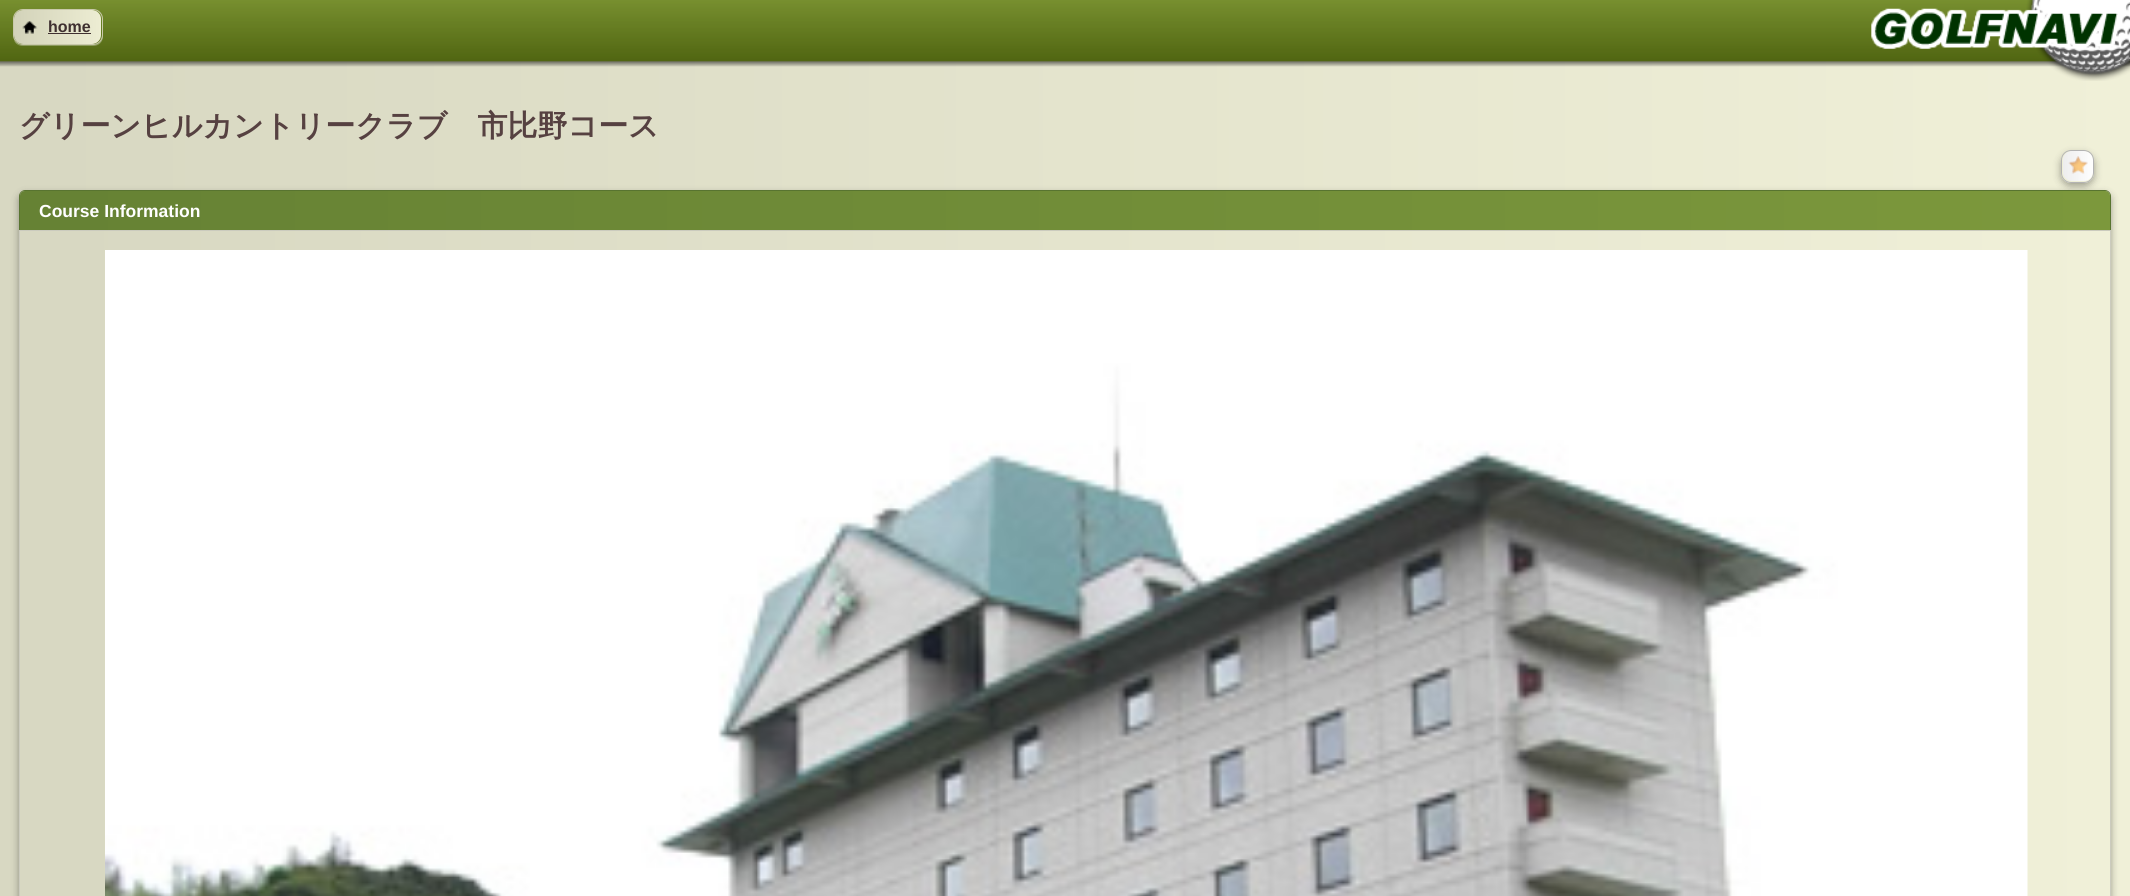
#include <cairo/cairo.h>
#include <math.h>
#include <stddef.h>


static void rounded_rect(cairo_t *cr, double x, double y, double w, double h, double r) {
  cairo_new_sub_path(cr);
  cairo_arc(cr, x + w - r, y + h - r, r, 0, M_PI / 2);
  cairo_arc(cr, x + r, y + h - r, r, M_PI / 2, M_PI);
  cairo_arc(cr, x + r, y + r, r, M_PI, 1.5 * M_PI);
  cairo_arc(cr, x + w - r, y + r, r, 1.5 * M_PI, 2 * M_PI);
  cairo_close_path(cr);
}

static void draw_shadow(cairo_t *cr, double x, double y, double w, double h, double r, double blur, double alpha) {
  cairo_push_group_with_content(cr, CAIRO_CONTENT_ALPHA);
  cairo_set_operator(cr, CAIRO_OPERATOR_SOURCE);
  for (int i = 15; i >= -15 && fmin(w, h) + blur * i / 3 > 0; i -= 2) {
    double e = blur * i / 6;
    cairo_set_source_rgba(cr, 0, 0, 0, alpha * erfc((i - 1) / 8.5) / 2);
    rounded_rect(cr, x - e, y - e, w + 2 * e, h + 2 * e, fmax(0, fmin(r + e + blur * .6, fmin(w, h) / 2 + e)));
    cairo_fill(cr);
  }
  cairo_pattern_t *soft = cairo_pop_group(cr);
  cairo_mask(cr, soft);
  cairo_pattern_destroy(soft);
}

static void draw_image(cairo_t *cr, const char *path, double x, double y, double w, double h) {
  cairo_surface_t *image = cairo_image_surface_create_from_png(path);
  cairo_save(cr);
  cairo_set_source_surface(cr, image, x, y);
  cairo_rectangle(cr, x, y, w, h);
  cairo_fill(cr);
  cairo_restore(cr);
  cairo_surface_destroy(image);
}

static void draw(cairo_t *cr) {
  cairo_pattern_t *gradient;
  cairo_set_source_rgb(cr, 1, 1, 1);
  cairo_paint(cr);
  gradient = cairo_pattern_create_linear(2130, 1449, 0, 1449);
  cairo_pattern_add_color_stop_rgba(gradient, 0, 240 / 255.0, 240 / 255.0, 216 / 255.0, 1);
  cairo_pattern_add_color_stop_rgba(gradient, 0.98, 216 / 255.0, 216 / 255.0, 194 / 255.0, 1);
  cairo_set_source(cr, gradient);
  cairo_pattern_destroy(gradient);
  cairo_rectangle(cr, 0, 61, 2130, 835);
  cairo_fill(cr);
  draw_image(cr, "images/1.png", 0, 0, 2130, 67);
  cairo_set_source_rgba(cr, 1, 1, 1, 0.3);
  cairo_new_path(cr);
  cairo_move_to(cr, 14, 40);
  cairo_curve_to(cr, 15, 44, 19, 46, 23, 46);
  cairo_line_to(cr, 93, 46);
  cairo_curve_to(cr, 99, 46, 103, 42, 103, 36);
  cairo_line_to(cr, 103, 20);
  cairo_line_to(cr, 102, 16);
  cairo_line_to(cr, 102, 19);
  cairo_line_to(cr, 102, 35);
  cairo_curve_to(cr, 102, 41, 98, 45, 92, 45);
  cairo_line_to(cr, 22, 45);
  cairo_curve_to(cr, 19, 45, 16, 43, 14, 40);
  cairo_close_path(cr);
  cairo_fill(cr);
  gradient = cairo_pattern_create_linear(101, 27, 14, 27);
  cairo_pattern_add_color_stop_rgba(gradient, 0, 237 / 255.0, 237 / 255.0, 211 / 255.0, 1);
  cairo_pattern_add_color_stop_rgba(gradient, 0.98, 211 / 255.0, 211 / 255.0, 186 / 255.0, 1);
  cairo_set_source(cr, gradient);
  cairo_pattern_destroy(gradient);
  rounded_rect(cr, 14, 10, 87, 34, 9);
  cairo_fill(cr);
  rounded_rect(cr, 13.5, 9.5, 89, 35, 9.5);
  cairo_set_source_rgb(cr, 201 / 255.0, 201 / 255.0, 171 / 255.0);
  cairo_set_line_width(cr, 1);
  cairo_stroke(cr);
  draw_image(cr, "images/2.png", 22, 21, 16, 13);
  cairo_set_source_rgb(cr, 63 / 255.0, 48 / 255.0, 48 / 255.0);
  cairo_rectangle(cr, 48, 33, 43, 1);
  cairo_fill(cr);
  draw_image(cr, "images/3.png", 1871, 0, 259, 81);
  cairo_save(cr);
  cairo_set_fill_rule(cr, CAIRO_FILL_RULE_EVEN_ODD);
  cairo_new_path(cr);
  cairo_move_to(cr, 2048, 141);
  cairo_line_to(cr, 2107, 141);
  cairo_line_to(cr, 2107, 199);
  cairo_line_to(cr, 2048, 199);
  cairo_close_path(cr);
  cairo_move_to(cr, 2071, 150);
  cairo_line_to(cr, 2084, 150);
  cairo_curve_to(cr, 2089.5, 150, 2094, 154.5, 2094, 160);
  cairo_line_to(cr, 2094, 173);
  cairo_curve_to(cr, 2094, 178.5, 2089.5, 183, 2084, 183);
  cairo_line_to(cr, 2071, 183);
  cairo_curve_to(cr, 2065.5, 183, 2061, 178.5, 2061, 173);
  cairo_line_to(cr, 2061, 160);
  cairo_curve_to(cr, 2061, 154.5, 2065.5, 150, 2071, 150);
  cairo_close_path(cr);
  cairo_clip(cr);
  cairo_set_source_rgb(cr, 0, 0, 0);
  draw_shadow(cr, 2061, 154, 33, 32, 10, 4, 0.35);
  cairo_restore(cr);
  gradient = cairo_pattern_create_linear(2093, 166, 2063, 166);
  cairo_pattern_add_color_stop_rgba(gradient, 0, 254 / 255.0, 254 / 255.0, 254 / 255.0, 1);
  cairo_pattern_add_color_stop_rgba(gradient, 0.97, 238 / 255.0, 238 / 255.0, 238 / 255.0, 1);
  cairo_pattern_add_color_stop_rgba(gradient, 0.98, 238 / 255.0, 238 / 255.0, 238 / 255.0, 1);
  cairo_set_source(cr, gradient);
  cairo_pattern_destroy(gradient);
  rounded_rect(cr, 2063, 151, 30, 30, 9);
  cairo_fill(cr);
  cairo_set_source_rgb(cr, 0, 0, 0);
  draw_shadow(cr, 19, 194, 2092, 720, 6, 4, 0.35);
  rounded_rect(cr, 2061.5, 150.5, 32, 32, 9.5);
  cairo_set_source_rgb(cr, 179 / 255.0, 179 / 255.0, 179 / 255.0);
  cairo_stroke(cr);
  draw_image(cr, "images/4.png", 2068, 156, 20, 18);
  gradient = cairo_pattern_create_linear(2110, 211, 20, 211);
  cairo_pattern_add_color_stop_rgba(gradient, 0, 124 / 255.0, 152 / 255.0, 60 / 255.0, 1);
  cairo_pattern_add_color_stop_rgba(gradient, 0.98, 102 / 255.0, 130 / 255.0, 52 / 255.0, 1);
  cairo_set_source(cr, gradient);
  cairo_pattern_destroy(gradient);
  cairo_new_path(cr);
  cairo_move_to(cr, 25, 191);
  cairo_line_to(cr, 2105, 191);
  cairo_curve_to(cr, 2108, 191, 2110, 193, 2110, 196);
  cairo_line_to(cr, 2110, 230);
  cairo_line_to(cr, 20, 230);
  cairo_line_to(cr, 20, 196);
  cairo_curve_to(cr, 20, 193, 22, 191, 25, 191);
  cairo_close_path(cr);
  cairo_fill(cr);
  cairo_set_source_rgb(cr, 88 / 255.0, 116 / 255.0, 48 / 255.0);
  cairo_set_fill_rule(cr, CAIRO_FILL_RULE_EVEN_ODD);
  cairo_new_path(cr);
  cairo_move_to(cr, 25, 190);
  cairo_line_to(cr, 2105, 190);
  cairo_curve_to(cr, 2108, 190, 2111, 193, 2111, 196);
  cairo_line_to(cr, 2111, 230);
  cairo_line_to(cr, 19, 230);
  cairo_line_to(cr, 19, 196);
  cairo_curve_to(cr, 19, 193, 22, 190, 25, 190);
  cairo_close_path(cr);
  cairo_move_to(cr, 25, 191);
  cairo_line_to(cr, 2105, 191);
  cairo_curve_to(cr, 2108, 191, 2110, 193, 2110, 196);
  cairo_line_to(cr, 2110, 230);
  cairo_line_to(cr, 20, 230);
  cairo_line_to(cr, 20, 196);
  cairo_curve_to(cr, 20, 193, 22, 191, 25, 191);
  cairo_close_path(cr);
  cairo_fill(cr);
  gradient = cairo_pattern_create_linear(2110, 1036, 20, 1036);
  cairo_pattern_add_color_stop_rgba(gradient, 0, 240 / 255.0, 240 / 255.0, 216 / 255.0, 1);
  cairo_pattern_add_color_stop_rgba(gradient, 0.98, 216 / 255.0, 216 / 255.0, 194 / 255.0, 1);
  cairo_set_source(cr, gradient);
  cairo_pattern_destroy(gradient);
  cairo_rectangle(cr, 20, 231, 2090, 665);
  cairo_fill(cr);
  cairo_set_source_rgb(cr, 203 / 255.0, 203 / 255.0, 190 / 255.0);
  cairo_rectangle(cr, 19, 230, 2092, 1);
  cairo_fill(cr);
  cairo_rectangle(cr, 2110, 230, 1, 666);
  cairo_fill(cr);
  cairo_rectangle(cr, 19, 230, 1, 666);
  cairo_fill(cr);
  draw_image(cr, "images/5.png", 105, 250, 1923, 646);
  cairo_select_font_face(cr, "Liberation Sans", CAIRO_FONT_SLANT_NORMAL, CAIRO_FONT_WEIGHT_BOLD);
  cairo_set_font_size(cr, 16);
  cairo_set_source_rgb(cr, 63 / 255.0, 48 / 255.0, 48 / 255.0);
  cairo_move_to(cr, 48, 32);
  cairo_show_text(cr, "home");
  cairo_select_font_face(cr, "WenQuanYi Zen Hei", CAIRO_FONT_SLANT_NORMAL, CAIRO_FONT_WEIGHT_BOLD);
  cairo_set_font_size(cr, 30);
  cairo_set_source_rgb(cr, 86 / 255.0, 65 / 255.0, 65 / 255.0);
  cairo_move_to(cr, 19, 136);
  cairo_show_text(cr, "グリーンヒルカントリークラブ　市比野コース");
  cairo_select_font_face(cr, "Liberation Sans", CAIRO_FONT_SLANT_NORMAL, CAIRO_FONT_WEIGHT_BOLD);
  cairo_set_font_size(cr, 17.5);
  cairo_set_source_rgb(cr, 1, 1, 1);
  cairo_move_to(cr, 39, 217);
  cairo_show_text(cr, "Course Information");
}

int main(void) {
  cairo_surface_t *surface = cairo_image_surface_create(CAIRO_FORMAT_RGB24, 2130, 896);
  cairo_t *cr = cairo_create(surface);
  cairo_font_options_t *options = cairo_font_options_create();
  cairo_font_options_set_hint_metrics(options, CAIRO_HINT_METRICS_OFF);
  cairo_font_options_set_hint_style(options, CAIRO_HINT_STYLE_NONE);
  cairo_set_font_options(cr, options);
  cairo_set_miter_limit(cr, 4);
  draw(cr);
  cairo_surface_write_to_png(surface, "out.png");
  cairo_font_options_destroy(options);
  cairo_destroy(cr);
  cairo_surface_destroy(surface);
  return 0;
}
